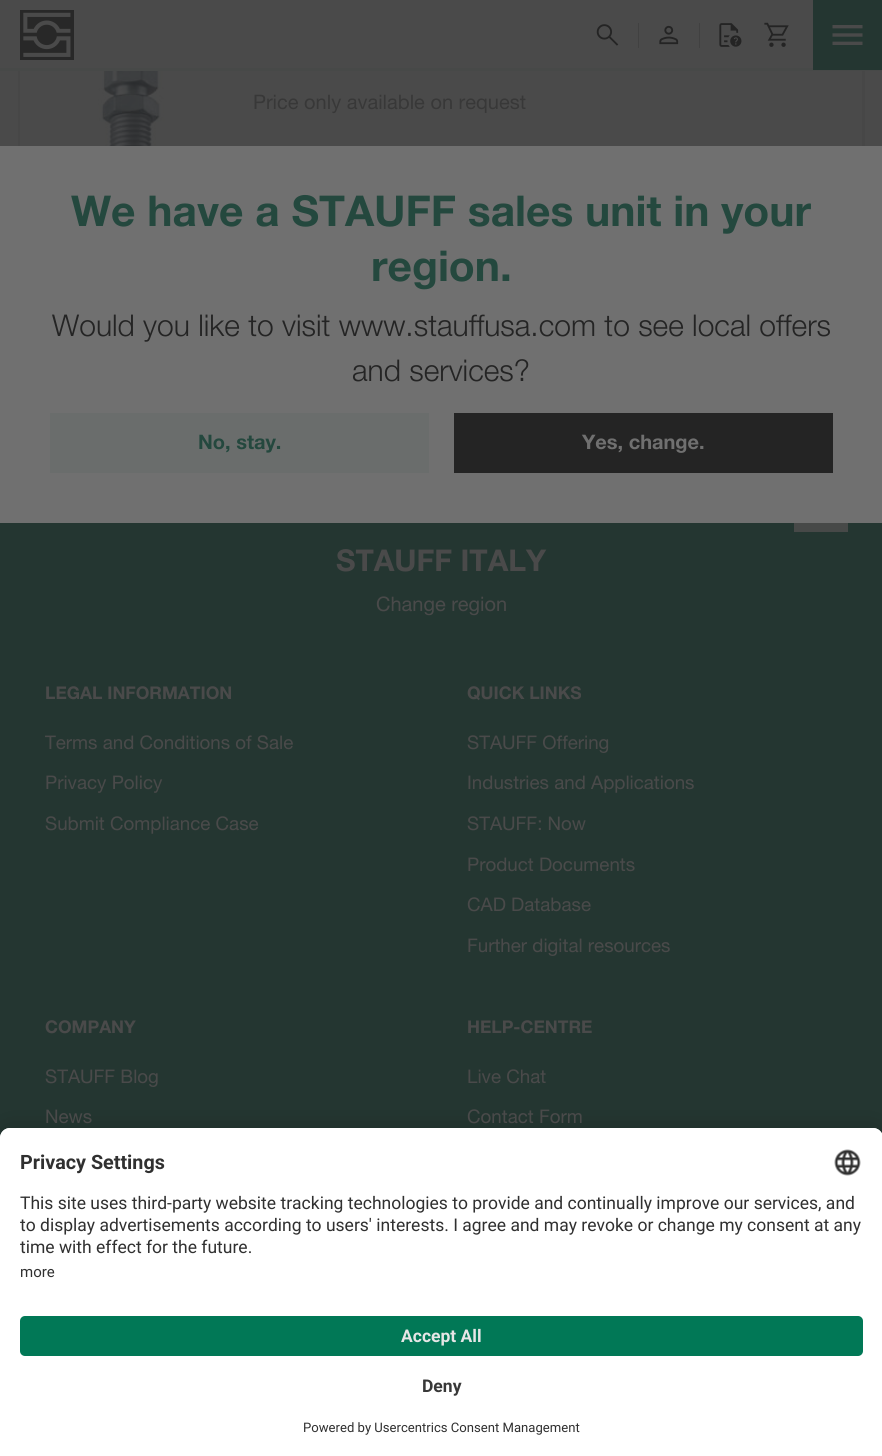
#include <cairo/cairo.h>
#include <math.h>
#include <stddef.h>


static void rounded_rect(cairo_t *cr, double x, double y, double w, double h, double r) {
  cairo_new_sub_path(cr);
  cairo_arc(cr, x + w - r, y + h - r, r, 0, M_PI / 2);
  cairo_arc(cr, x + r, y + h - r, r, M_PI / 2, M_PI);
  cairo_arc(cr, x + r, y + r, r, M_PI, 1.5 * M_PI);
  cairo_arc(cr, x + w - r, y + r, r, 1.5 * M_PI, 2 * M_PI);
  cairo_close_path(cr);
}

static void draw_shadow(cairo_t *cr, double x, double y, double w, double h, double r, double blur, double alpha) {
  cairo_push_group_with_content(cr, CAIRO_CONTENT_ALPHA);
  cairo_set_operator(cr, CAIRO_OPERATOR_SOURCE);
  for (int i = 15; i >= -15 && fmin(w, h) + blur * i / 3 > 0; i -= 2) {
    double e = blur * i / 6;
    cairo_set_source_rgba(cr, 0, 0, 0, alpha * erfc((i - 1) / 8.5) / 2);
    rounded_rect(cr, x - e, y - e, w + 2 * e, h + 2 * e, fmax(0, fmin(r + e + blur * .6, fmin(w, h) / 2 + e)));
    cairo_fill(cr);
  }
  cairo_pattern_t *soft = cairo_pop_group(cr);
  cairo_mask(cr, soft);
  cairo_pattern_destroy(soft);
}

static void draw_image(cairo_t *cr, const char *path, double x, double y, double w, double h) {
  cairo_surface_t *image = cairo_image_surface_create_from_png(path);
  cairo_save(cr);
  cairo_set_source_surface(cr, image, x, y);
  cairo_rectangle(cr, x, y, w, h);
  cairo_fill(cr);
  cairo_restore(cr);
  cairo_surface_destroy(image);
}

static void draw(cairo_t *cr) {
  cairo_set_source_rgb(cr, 74 / 255.0, 74 / 255.0, 74 / 255.0);
  cairo_paint(cr);
  cairo_rectangle(cr, 19.5, 19.5, 844, 214);
  cairo_set_source_rgb(cr, 71 / 255.0, 71 / 255.0, 71 / 255.0);
  cairo_set_line_width(cr, 3);
  cairo_stroke(cr);
  cairo_set_source_rgb(cr, 74 / 255.0, 74 / 255.0, 74 / 255.0);
  cairo_rectangle(cr, 18, 18, 795, 50);
  cairo_fill(cr);
  cairo_set_source_rgb(cr, 71 / 255.0, 73 / 255.0, 72 / 255.0);
  cairo_rectangle(cr, 0, 68, 882, 3);
  cairo_fill(cr);
  draw_image(cr, "images/1.png", 20, 10, 54, 50);
  draw_image(cr, "images/2.png", 596, 24, 23, 22);
  cairo_set_source_rgb(cr, 65 / 255.0, 65 / 255.0, 65 / 255.0);
  cairo_rectangle(cr, 638, 23, 1, 25);
  cairo_fill(cr);
  draw_image(cr, "images/3.png", 659, 25, 20, 20);
  cairo_rectangle(cr, 699, 23, 1, 25);
  cairo_fill(cr);
  draw_image(cr, "images/4.png", 719, 23, 23, 24);
  draw_image(cr, "images/5.png", 764, 22, 25, 25);
  cairo_set_source_rgb(cr, 36 / 255.0, 54 / 255.0, 49 / 255.0);
  cairo_rectangle(cr, 813, 0, 69, 70);
  cairo_fill(cr);
  draw_image(cr, "images/6.png", 832, 25, 31, 20);
  draw_image(cr, "images/7.png", 20, 71, 212, 75);
  cairo_rectangle(cr, 0, 523, 882, 615);
  cairo_fill(cr);
  cairo_set_source_rgb(cr, 71 / 255.0, 73 / 255.0, 72 / 255.0);
  cairo_rectangle(cr, 794, 523, 54, 9);
  cairo_fill(cr);
  cairo_rectangle(cr, 792.5, 476.5, 57, 57);
  cairo_set_source_rgb(cr, 36 / 255.0, 54 / 255.0, 49 / 255.0);
  cairo_stroke(cr);
  cairo_set_source_rgb(cr, 112 / 255.0, 112 / 255.0, 112 / 255.0);
  cairo_rectangle(cr, 0, 146, 882, 377);
  cairo_fill(cr);
  cairo_set_source_rgb(cr, 106 / 255.0, 109 / 255.0, 108 / 255.0);
  cairo_rectangle(cr, 50, 413, 379, 60);
  cairo_fill(cr);
  cairo_set_source_rgb(cr, 36 / 255.0, 36 / 255.0, 36 / 255.0);
  cairo_rectangle(cr, 454, 413, 379, 60);
  cairo_fill(cr);
  cairo_set_source_rgb(cr, 0, 0, 0);
  draw_shadow(cr, 0, 1134, 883, 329, 10, 16, 0.22);
  cairo_set_source_rgb(cr, 1, 1, 1);
  cairo_new_path(cr);
  cairo_move_to(cr, 10, 1128);
  cairo_line_to(cr, 873, 1128);
  cairo_curve_to(cr, 878.5, 1128, 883, 1132.5, 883, 1138);
  cairo_line_to(cr, 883, 1456);
  cairo_line_to(cr, 0, 1456);
  cairo_line_to(cr, 0, 1138);
  cairo_curve_to(cr, 0, 1132.5, 4.5, 1128, 10, 1128);
  cairo_close_path(cr);
  cairo_fill(cr);
  cairo_new_path(cr);
  cairo_move_to(cr, 10, 1128);
  cairo_line_to(cr, 873, 1128);
  cairo_curve_to(cr, 878.5, 1128, 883, 1132.5, 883, 1138);
  cairo_line_to(cr, 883, 1301);
  cairo_line_to(cr, 0, 1301);
  cairo_line_to(cr, 0, 1138);
  cairo_curve_to(cr, 0, 1132.5, 4.5, 1128, 10, 1128);
  cairo_close_path(cr);
  cairo_fill(cr);
  draw_image(cr, "images/8.png", 834, 1149, 27, 27);
  cairo_set_source_rgb(cr, 1 / 255.0, 120 / 255.0, 86 / 255.0);
  rounded_rect(cr, 20, 1316, 843, 40, 5);
  cairo_fill(cr);
  cairo_select_font_face(cr, "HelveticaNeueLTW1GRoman", CAIRO_FONT_SLANT_NORMAL, CAIRO_FONT_WEIGHT_NORMAL);
  cairo_set_font_size(cr, 20);
  cairo_set_source_rgb(cr, 56 / 255.0, 56 / 255.0, 56 / 255.0);
  cairo_move_to(cr, 253, 109);
  cairo_show_text(cr, "Price only available on request");
  cairo_select_font_face(cr, "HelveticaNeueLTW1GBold", CAIRO_FONT_SLANT_NORMAL, CAIRO_FONT_WEIGHT_BOLD);
  cairo_set_font_size(cr, 42.5);
  cairo_set_source_rgb(cr, 36 / 255.0, 72 / 255.0, 62 / 255.0);
  cairo_move_to(cr, 71, 226);
  cairo_show_text(cr, "We have a STAUFF sales unit in your");
  cairo_move_to(cr, 371, 281);
  cairo_show_text(cr, "region.");
  cairo_select_font_face(cr, "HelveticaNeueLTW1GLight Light", CAIRO_FONT_SLANT_NORMAL, CAIRO_FONT_WEIGHT_NORMAL);
  cairo_set_font_size(cr, 30);
  cairo_set_source_rgb(cr, 36 / 255.0, 36 / 255.0, 36 / 255.0);
  cairo_move_to(cr, 52, 336);
  cairo_show_text(cr, "Would you like to visit www.stauffusa.com to see local offers");
  cairo_move_to(cr, 352, 381);
  cairo_show_text(cr, "and services?");
  cairo_select_font_face(cr, "HelveticaNeueLTW1GBold", CAIRO_FONT_SLANT_NORMAL, CAIRO_FONT_WEIGHT_BOLD);
  cairo_set_font_size(cr, 20);
  cairo_set_source_rgb(cr, 36 / 255.0, 72 / 255.0, 62 / 255.0);
  cairo_move_to(cr, 198, 449);
  cairo_show_text(cr, "No, stay.");
  cairo_set_source_rgb(cr, 112 / 255.0, 112 / 255.0, 112 / 255.0);
  cairo_move_to(cr, 582, 449);
  cairo_show_text(cr, "Yes, change.");
  cairo_set_font_size(cr, 30);
  cairo_set_source_rgb(cr, 74 / 255.0, 74 / 255.0, 74 / 255.0);
  cairo_move_to(cr, 336, 571);
  cairo_show_text(cr, "STAUFF ITALY");
  cairo_select_font_face(cr, "HelveticaNeueLTW1GRoman", CAIRO_FONT_SLANT_NORMAL, CAIRO_FONT_WEIGHT_NORMAL);
  cairo_set_font_size(cr, 20);
  cairo_move_to(cr, 376, 611);
  cairo_show_text(cr, "Change region");
  cairo_select_font_face(cr, "HelveticaNeueLTW1GBold", CAIRO_FONT_SLANT_NORMAL, CAIRO_FONT_WEIGHT_BOLD);
  cairo_set_font_size(cr, 17.5);
  cairo_move_to(cr, 45, 699);
  cairo_show_text(cr, "LEGAL INFORMATION");
  cairo_select_font_face(cr, "HelveticaNeueLTW1GRoman", CAIRO_FONT_SLANT_NORMAL, CAIRO_FONT_WEIGHT_NORMAL);
  cairo_set_font_size(cr, 18.75);
  cairo_move_to(cr, 45, 749);
  cairo_show_text(cr, "Terms and Conditions of Sale");
  cairo_move_to(cr, 45, 789);
  cairo_show_text(cr, "Privacy Policy");
  cairo_move_to(cr, 45, 830);
  cairo_show_text(cr, "Submit Compliance Case");
  cairo_select_font_face(cr, "HelveticaNeueLTW1GBold", CAIRO_FONT_SLANT_NORMAL, CAIRO_FONT_WEIGHT_BOLD);
  cairo_set_font_size(cr, 17.5);
  cairo_move_to(cr, 467, 699);
  cairo_show_text(cr, "QUICK LINKS");
  cairo_select_font_face(cr, "HelveticaNeueLTW1GRoman", CAIRO_FONT_SLANT_NORMAL, CAIRO_FONT_WEIGHT_NORMAL);
  cairo_set_font_size(cr, 18.75);
  cairo_move_to(cr, 467, 749);
  cairo_show_text(cr, "STAUFF Offering");
  cairo_move_to(cr, 467, 789);
  cairo_show_text(cr, "Industries and Applications");
  cairo_move_to(cr, 467, 830);
  cairo_show_text(cr, "STAUFF: Now");
  cairo_move_to(cr, 467, 871);
  cairo_show_text(cr, "Product Documents");
  cairo_move_to(cr, 467, 911);
  cairo_show_text(cr, "CAD Database");
  cairo_move_to(cr, 467, 952);
  cairo_show_text(cr, "Further digital resources");
  cairo_select_font_face(cr, "HelveticaNeueLTW1GBold", CAIRO_FONT_SLANT_NORMAL, CAIRO_FONT_WEIGHT_BOLD);
  cairo_set_font_size(cr, 17.5);
  cairo_move_to(cr, 45, 1033);
  cairo_show_text(cr, "COMPANY");
  cairo_select_font_face(cr, "HelveticaNeueLTW1GRoman", CAIRO_FONT_SLANT_NORMAL, CAIRO_FONT_WEIGHT_NORMAL);
  cairo_set_font_size(cr, 18.75);
  cairo_move_to(cr, 45, 1083);
  cairo_show_text(cr, "STAUFF Blog");
  cairo_move_to(cr, 45, 1123);
  cairo_show_text(cr, "News");
  cairo_select_font_face(cr, "HelveticaNeueLTW1GBold", CAIRO_FONT_SLANT_NORMAL, CAIRO_FONT_WEIGHT_BOLD);
  cairo_set_font_size(cr, 17.5);
  cairo_move_to(cr, 467, 1033);
  cairo_show_text(cr, "HELP-CENTRE");
  cairo_select_font_face(cr, "HelveticaNeueLTW1GRoman", CAIRO_FONT_SLANT_NORMAL, CAIRO_FONT_WEIGHT_NORMAL);
  cairo_set_font_size(cr, 18.75);
  cairo_move_to(cr, 467, 1083);
  cairo_show_text(cr, "Live Chat");
  cairo_move_to(cr, 467, 1123);
  cairo_show_text(cr, "Contact Form");
  cairo_select_font_face(cr, "Roboto", CAIRO_FONT_SLANT_NORMAL, CAIRO_FONT_WEIGHT_BOLD);
  cairo_set_font_size(cr, 19.75);
  cairo_set_source_rgb(cr, 48 / 255.0, 48 / 255.0, 48 / 255.0);
  cairo_move_to(cr, 20, 1169);
  cairo_show_text(cr, "Privacy Settings");
  cairo_select_font_face(cr, "Roboto", CAIRO_FONT_SLANT_NORMAL, CAIRO_FONT_WEIGHT_NORMAL);
  cairo_set_font_size(cr, 17.5);
  cairo_move_to(cr, 20, 1209);
  cairo_show_text(cr, "This site uses third-party website tracking technologies to provide and continually improve our services, and");
  cairo_move_to(cr, 20, 1231);
  cairo_show_text(cr, "to display advertisements according to users' interests. I agree and may revoke or change my consent at any");
  cairo_move_to(cr, 20, 1253);
  cairo_show_text(cr, "time with effect for the future.");
  cairo_set_font_size(cr, 15);
  cairo_move_to(cr, 20, 1277);
  cairo_show_text(cr, "more");
  cairo_select_font_face(cr, "Roboto", CAIRO_FONT_SLANT_NORMAL, CAIRO_FONT_WEIGHT_BOLD);
  cairo_set_font_size(cr, 17.5);
  cairo_set_source_rgb(cr, 230 / 255.0, 230 / 255.0, 230 / 255.0);
  cairo_move_to(cr, 401, 1342);
  cairo_show_text(cr, "Accept All");
  cairo_set_source_rgb(cr, 56 / 255.0, 56 / 255.0, 56 / 255.0);
  cairo_move_to(cr, 422, 1392);
  cairo_show_text(cr, "Deny");
  cairo_select_font_face(cr, "Roboto", CAIRO_FONT_SLANT_NORMAL, CAIRO_FONT_WEIGHT_NORMAL);
  cairo_set_font_size(cr, 13.1);
  cairo_set_source_rgb(cr, 48 / 255.0, 48 / 255.0, 48 / 255.0);
  cairo_move_to(cr, 303, 1432);
  cairo_show_text(cr, "Powered by Usercentrics Consent Management");
}

int main(void) {
  cairo_surface_t *surface = cairo_image_surface_create(CAIRO_FORMAT_RGB24, 882, 1456);
  cairo_t *cr = cairo_create(surface);
  cairo_font_options_t *options = cairo_font_options_create();
  cairo_font_options_set_hint_metrics(options, CAIRO_HINT_METRICS_OFF);
  cairo_font_options_set_hint_style(options, CAIRO_HINT_STYLE_NONE);
  cairo_set_font_options(cr, options);
  cairo_set_miter_limit(cr, 4);
  draw(cr);
  cairo_surface_write_to_png(surface, "out.png");
  cairo_font_options_destroy(options);
  cairo_destroy(cr);
  cairo_surface_destroy(surface);
  return 0;
}
